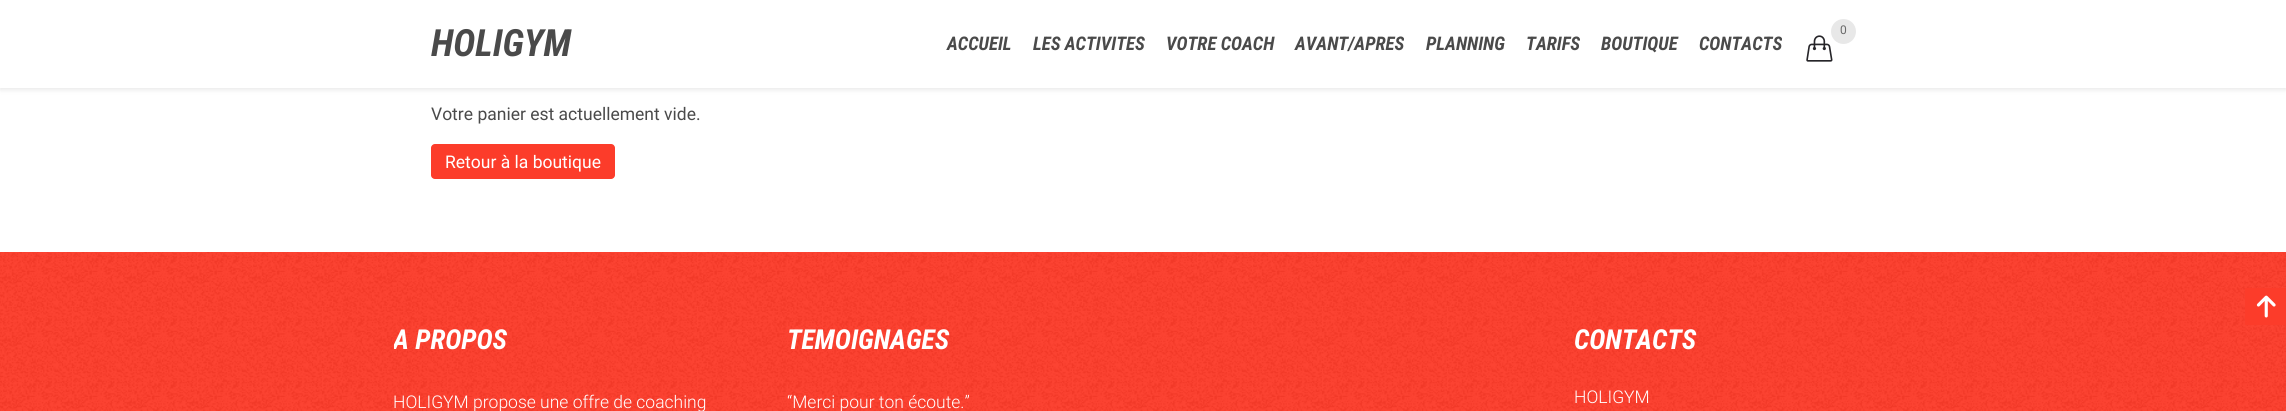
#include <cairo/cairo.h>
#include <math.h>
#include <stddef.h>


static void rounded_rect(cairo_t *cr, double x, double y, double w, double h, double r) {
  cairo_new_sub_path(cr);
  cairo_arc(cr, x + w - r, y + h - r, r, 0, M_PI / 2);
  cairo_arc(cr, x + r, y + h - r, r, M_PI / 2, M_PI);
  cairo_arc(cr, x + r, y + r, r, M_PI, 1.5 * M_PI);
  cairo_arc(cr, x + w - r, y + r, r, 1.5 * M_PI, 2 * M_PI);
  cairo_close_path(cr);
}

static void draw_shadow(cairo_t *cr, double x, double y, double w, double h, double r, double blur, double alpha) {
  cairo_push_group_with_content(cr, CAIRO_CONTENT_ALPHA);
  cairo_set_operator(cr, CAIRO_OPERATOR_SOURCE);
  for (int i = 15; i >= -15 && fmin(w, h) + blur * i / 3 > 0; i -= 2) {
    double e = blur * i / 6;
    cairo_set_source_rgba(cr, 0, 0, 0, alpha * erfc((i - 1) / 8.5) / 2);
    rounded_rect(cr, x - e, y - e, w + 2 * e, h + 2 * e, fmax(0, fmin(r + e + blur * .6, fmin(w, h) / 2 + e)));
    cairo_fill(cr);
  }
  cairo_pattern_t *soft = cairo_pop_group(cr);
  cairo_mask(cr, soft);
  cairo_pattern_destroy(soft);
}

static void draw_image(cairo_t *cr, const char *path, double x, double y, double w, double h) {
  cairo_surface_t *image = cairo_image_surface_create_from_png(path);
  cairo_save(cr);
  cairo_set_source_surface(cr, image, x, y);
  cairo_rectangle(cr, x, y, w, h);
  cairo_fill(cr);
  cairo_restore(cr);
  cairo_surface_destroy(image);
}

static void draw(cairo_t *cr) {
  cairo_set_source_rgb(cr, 1, 1, 1);
  cairo_paint(cr);
  cairo_set_source_rgb(cr, 0, 0, 0);
  draw_shadow(cr, 0, 3, 2286, 87, 0, 2.5, 0.09);
  cairo_set_source_rgb(cr, 1, 1, 1);
  cairo_rectangle(cr, 0, 0, 2286, 88);
  cairo_fill(cr);
  draw_image(cr, "images/1.png", 1806, 35, 27, 27);
  cairo_set_source_rgb(cr, 232 / 255.0, 232 / 255.0, 232 / 255.0);
  cairo_arc(cr, 1843.5, 31.5, 12.5, 0, 2 * M_PI);
  cairo_fill(cr);
  cairo_set_source_rgb(cr, 252 / 255.0, 60 / 255.0, 42 / 255.0);
  rounded_rect(cr, 431, 144, 184, 35, 4);
  cairo_fill(cr);
  draw_image(cr, "images/2.png", 0, 252, 2286, 159);
  cairo_new_path(cr);
  cairo_move_to(cr, 2246, 288);
  cairo_line_to(cr, 2286, 288);
  cairo_line_to(cr, 2286, 325);
  cairo_line_to(cr, 2245, 325);
  cairo_line_to(cr, 2245, 289);
  cairo_curve_to(cr, 2245, 288.5, 2245.5, 288, 2246, 288);
  cairo_close_path(cr);
  cairo_fill(cr);
  draw_image(cr, "images/3.png", 2256, 295, 20, 23);
  cairo_select_font_face(cr, "Roboto Condensed", CAIRO_FONT_SLANT_ITALIC, CAIRO_FONT_WEIGHT_BOLD);
  cairo_set_font_size(cr, 37.5);
  cairo_set_source_rgb(cr, 74 / 255.0, 74 / 255.0, 74 / 255.0);
  cairo_move_to(cr, 431, 56);
  cairo_show_text(cr, "HOLIGYM");
  cairo_set_font_size(cr, 18.75);
  cairo_move_to(cr, 947, 50);
  cairo_show_text(cr, "ACCUEIL");
  cairo_move_to(cr, 1033, 50);
  cairo_show_text(cr, "LES ACTIVITES");
  cairo_move_to(cr, 1166, 50);
  cairo_show_text(cr, "VOTRE COACH");
  cairo_move_to(cr, 1295, 50);
  cairo_show_text(cr, "AVANT/APRES");
  cairo_move_to(cr, 1426, 50);
  cairo_show_text(cr, "PLANNING");
  cairo_move_to(cr, 1526, 50);
  cairo_show_text(cr, "TARIFS");
  cairo_move_to(cr, 1601, 50);
  cairo_show_text(cr, "BOUTIQUE");
  cairo_move_to(cr, 1699, 50);
  cairo_show_text(cr, "CONTACTS");
  cairo_select_font_face(cr, "Roboto", CAIRO_FONT_SLANT_NORMAL, CAIRO_FONT_WEIGHT_NORMAL);
  cairo_set_font_size(cr, 12);
  cairo_set_source_rgb(cr, 105 / 255.0, 105 / 255.0, 105 / 255.0);
  cairo_move_to(cr, 1840, 34);
  cairo_show_text(cr, "0");
  cairo_set_font_size(cr, 17.5);
  cairo_set_source_rgb(cr, 74 / 255.0, 74 / 255.0, 74 / 255.0);
  cairo_move_to(cr, 431, 120);
  cairo_show_text(cr, "Votre panier est actuellement vide.");
  cairo_set_source_rgb(cr, 1, 1, 1);
  cairo_move_to(cr, 445, 168);
  cairo_show_text(cr, "Retour à la boutique");
  cairo_save(cr);
  cairo_rectangle(cr, 394, 290, 319, 81);
  cairo_clip(cr);
  cairo_select_font_face(cr, "Roboto Condensed", CAIRO_FONT_SLANT_ITALIC, CAIRO_FONT_WEIGHT_BOLD);
  cairo_set_font_size(cr, 27.5);
  cairo_move_to(cr, 393, 349);
  cairo_show_text(cr, "A PROPOS");
  cairo_restore(cr);
  cairo_select_font_face(cr, "Roboto Light", CAIRO_FONT_SLANT_NORMAL, CAIRO_FONT_WEIGHT_NORMAL);
  cairo_move_to(cr, 393, 408);
  cairo_show_text(cr, "HOLIGYM propose une offre de coaching");
  cairo_select_font_face(cr, "Roboto Condensed", CAIRO_FONT_SLANT_ITALIC, CAIRO_FONT_WEIGHT_BOLD);
  cairo_set_font_size(cr, 27.5);
  cairo_move_to(cr, 787, 349);
  cairo_show_text(cr, "TEMOIGNAGES");
  cairo_select_font_face(cr, "Roboto Light", CAIRO_FONT_SLANT_NORMAL, CAIRO_FONT_WEIGHT_NORMAL);
  cairo_set_font_size(cr, 17.5);
  cairo_move_to(cr, 787, 408);
  cairo_show_text(cr, "“Merci pour ton écoute.”");
  cairo_select_font_face(cr, "Roboto Condensed", CAIRO_FONT_SLANT_ITALIC, CAIRO_FONT_WEIGHT_BOLD);
  cairo_set_font_size(cr, 27.5);
  cairo_move_to(cr, 1574, 349);
  cairo_show_text(cr, "CONTACTS");
  cairo_select_font_face(cr, "Roboto Light", CAIRO_FONT_SLANT_NORMAL, CAIRO_FONT_WEIGHT_NORMAL);
  cairo_set_font_size(cr, 17.5);
  cairo_move_to(cr, 1574, 403);
  cairo_show_text(cr, "HOLIGYM");
}

int main(void) {
  cairo_surface_t *surface = cairo_image_surface_create(CAIRO_FORMAT_RGB24, 2286, 411);
  cairo_t *cr = cairo_create(surface);
  cairo_font_options_t *options = cairo_font_options_create();
  cairo_font_options_set_hint_metrics(options, CAIRO_HINT_METRICS_OFF);
  cairo_font_options_set_hint_style(options, CAIRO_HINT_STYLE_NONE);
  cairo_set_font_options(cr, options);
  cairo_set_miter_limit(cr, 4);
  draw(cr);
  cairo_surface_write_to_png(surface, "out.png");
  cairo_font_options_destroy(options);
  cairo_destroy(cr);
  cairo_surface_destroy(surface);
  return 0;
}
